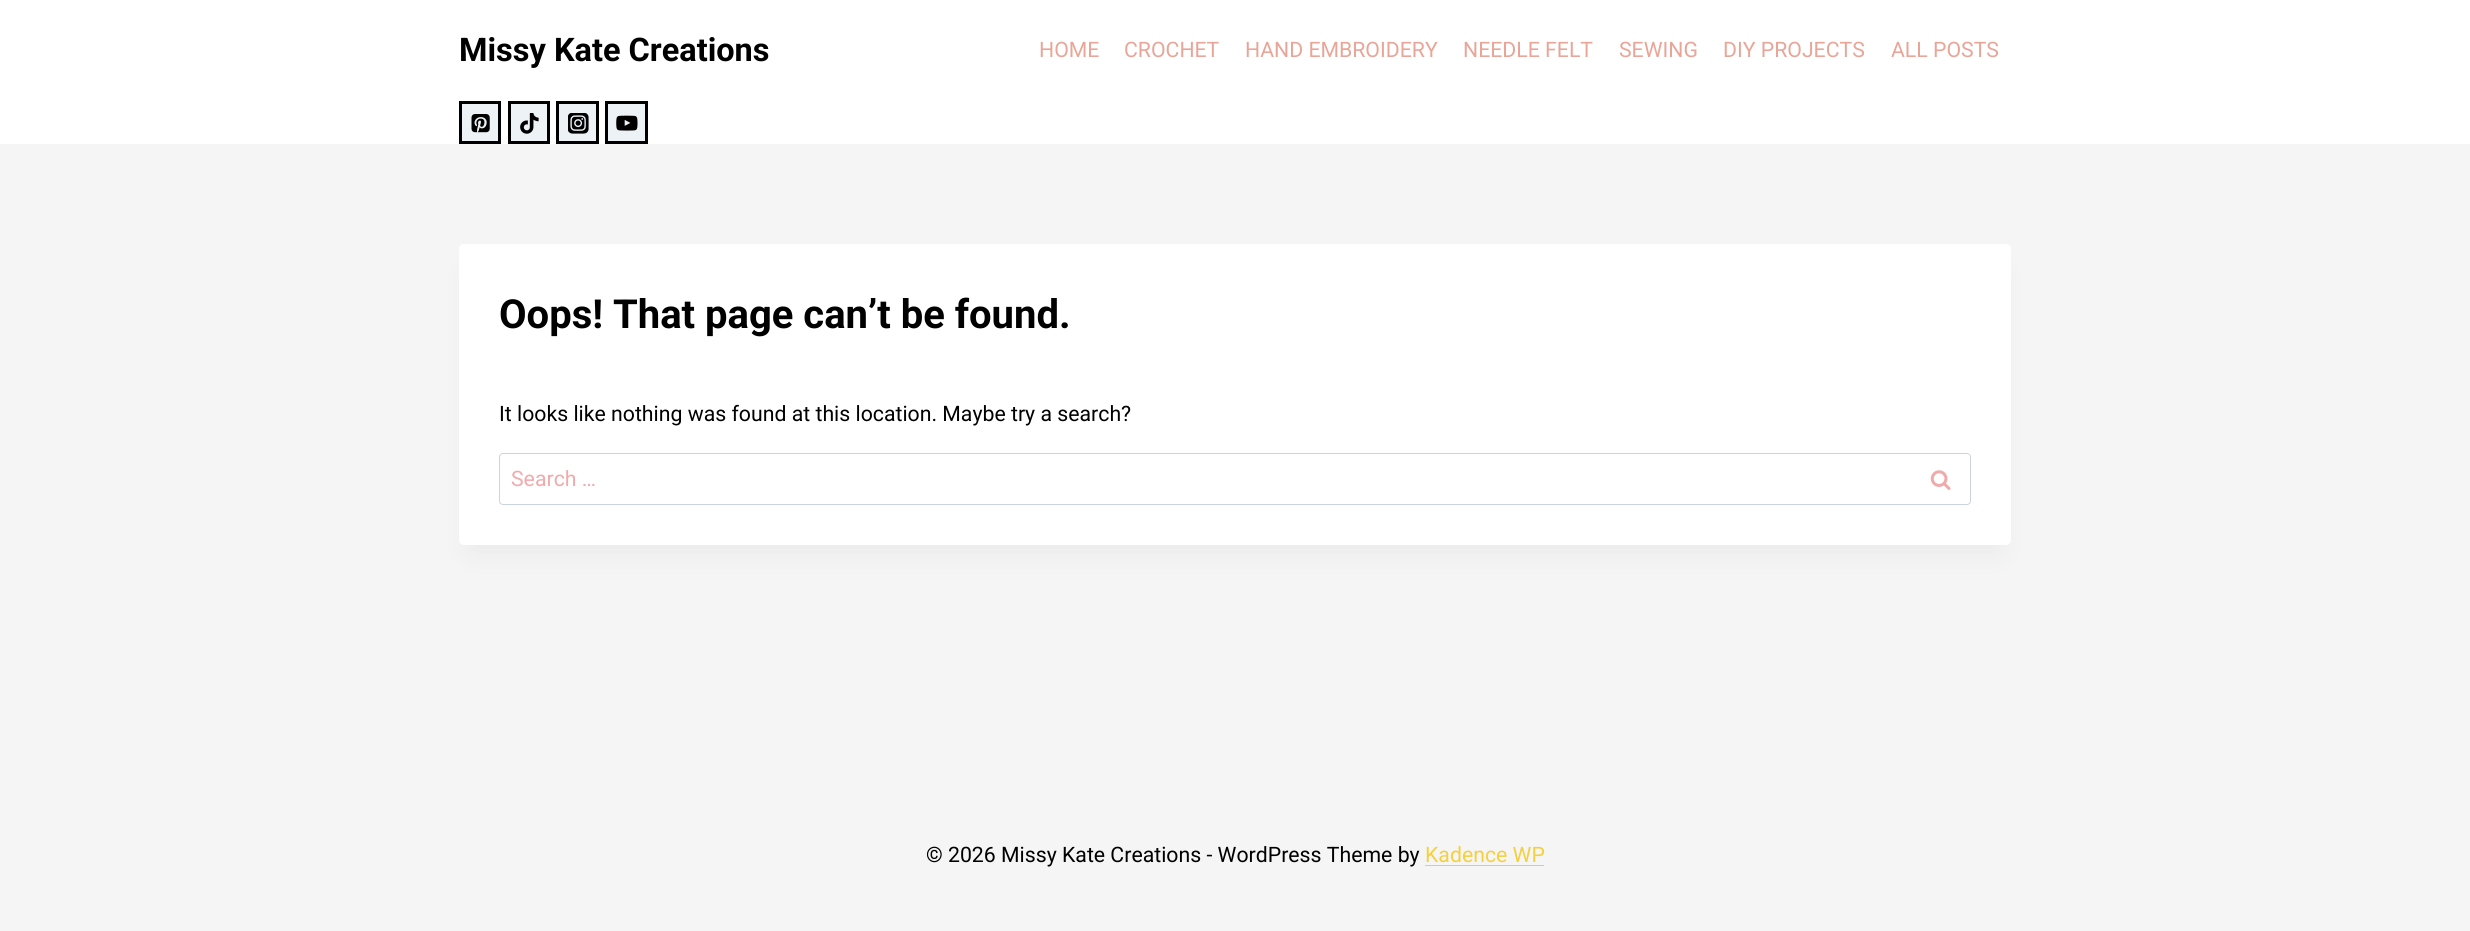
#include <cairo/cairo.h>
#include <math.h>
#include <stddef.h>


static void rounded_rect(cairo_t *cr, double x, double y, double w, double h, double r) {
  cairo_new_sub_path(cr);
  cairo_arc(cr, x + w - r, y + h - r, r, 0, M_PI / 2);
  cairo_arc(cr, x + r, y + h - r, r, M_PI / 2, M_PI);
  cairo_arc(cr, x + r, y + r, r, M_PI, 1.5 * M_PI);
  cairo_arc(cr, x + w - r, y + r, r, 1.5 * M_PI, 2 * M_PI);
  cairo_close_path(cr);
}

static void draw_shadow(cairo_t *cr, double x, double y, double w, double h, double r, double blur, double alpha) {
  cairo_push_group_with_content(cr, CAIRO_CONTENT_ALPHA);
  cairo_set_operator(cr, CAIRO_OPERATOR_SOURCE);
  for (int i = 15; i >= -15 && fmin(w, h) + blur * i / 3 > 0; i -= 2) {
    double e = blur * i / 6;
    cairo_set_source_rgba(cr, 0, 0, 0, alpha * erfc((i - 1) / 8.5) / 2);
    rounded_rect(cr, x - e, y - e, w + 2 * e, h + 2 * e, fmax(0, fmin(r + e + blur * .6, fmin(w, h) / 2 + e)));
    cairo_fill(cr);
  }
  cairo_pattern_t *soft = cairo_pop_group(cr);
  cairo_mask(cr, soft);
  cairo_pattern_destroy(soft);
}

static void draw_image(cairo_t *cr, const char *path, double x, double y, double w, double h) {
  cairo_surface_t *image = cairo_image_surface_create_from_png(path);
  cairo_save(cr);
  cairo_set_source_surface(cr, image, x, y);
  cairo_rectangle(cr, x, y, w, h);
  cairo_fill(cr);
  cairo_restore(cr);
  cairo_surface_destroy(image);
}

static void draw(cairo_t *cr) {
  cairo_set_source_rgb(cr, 245 / 255.0, 245 / 255.0, 245 / 255.0);
  cairo_paint(cr);
  cairo_set_source_rgb(cr, 1, 1, 1);
  cairo_rectangle(cr, 0, 0, 2470, 144);
  cairo_fill(cr);
  cairo_set_source_rgb(cr, 237 / 255.0, 242 / 255.0, 247 / 255.0);
  cairo_rectangle(cr, 460.5, 102.5, 39, 40);
  cairo_fill_preserve(cr);
  cairo_set_source_rgb(cr, 0, 0, 0);
  cairo_set_line_width(cr, 3);
  cairo_stroke(cr);
  draw_image(cr, "images/1.png", 471, 114, 19, 19);
  cairo_set_source_rgb(cr, 237 / 255.0, 242 / 255.0, 247 / 255.0);
  cairo_rectangle(cr, 509.5, 102.5, 39, 40);
  cairo_fill_preserve(cr);
  cairo_set_source_rgb(cr, 0, 0, 0);
  cairo_stroke(cr);
  draw_image(cr, "images/2.png", 520, 113, 19, 21);
  cairo_set_source_rgb(cr, 237 / 255.0, 242 / 255.0, 247 / 255.0);
  cairo_rectangle(cr, 557.5, 102.5, 40, 40);
  cairo_fill_preserve(cr);
  cairo_set_source_rgb(cr, 0, 0, 0);
  cairo_stroke(cr);
  draw_image(cr, "images/3.png", 568, 113, 21, 21);
  cairo_set_source_rgb(cr, 237 / 255.0, 242 / 255.0, 247 / 255.0);
  cairo_rectangle(cr, 606.5, 102.5, 40, 40);
  cairo_fill_preserve(cr);
  cairo_set_source_rgb(cr, 0, 0, 0);
  cairo_stroke(cr);
  draw_image(cr, "images/4.png", 616, 115, 22, 16);
  cairo_set_source_rgb(cr, 0, 0, 0);
  draw_shadow(cr, 471, 275, 1528, 276, 0, 15.5, 0.05);
  cairo_set_source_rgb(cr, 1, 1, 1);
  rounded_rect(cr, 459, 244, 1552, 301, 5);
  cairo_fill(cr);
  rounded_rect(cr, 499.5, 453.5, 1471, 51, 3.5);
  cairo_set_source_rgb(cr, 203 / 255.0, 213 / 255.0, 224 / 255.0);
  cairo_set_line_width(cr, 1);
  cairo_stroke(cr);
  draw_image(cr, "images/5.png", 1930, 470, 21, 20);
  cairo_set_source_rgb(cr, 244 / 255.0, 208 / 255.0, 63 / 255.0);
  cairo_rectangle(cr, 1425, 865, 119, 1);
  cairo_fill(cr);
  cairo_select_font_face(cr, "Roboto", CAIRO_FONT_SLANT_NORMAL, CAIRO_FONT_WEIGHT_BOLD);
  cairo_set_font_size(cr, 32.5);
  cairo_set_source_rgb(cr, 0, 0, 0);
  cairo_move_to(cr, 459, 61);
  cairo_show_text(cr, "Missy Kate Creations");
  cairo_select_font_face(cr, "Roboto", CAIRO_FONT_SLANT_NORMAL, CAIRO_FONT_WEIGHT_NORMAL);
  cairo_set_font_size(cr, 21.25);
  cairo_set_source_rgb(cr, 232 / 255.0, 165 / 255.0, 152 / 255.0);
  cairo_move_to(cr, 1039, 57);
  cairo_show_text(cr, "HOME");
  cairo_move_to(cr, 1124, 57);
  cairo_show_text(cr, "CROCHET");
  cairo_move_to(cr, 1245, 57);
  cairo_show_text(cr, "HAND EMBROIDERY");
  cairo_move_to(cr, 1463, 57);
  cairo_show_text(cr, "NEEDLE FELT");
  cairo_move_to(cr, 1619, 57);
  cairo_show_text(cr, "SEWING");
  cairo_move_to(cr, 1723, 57);
  cairo_show_text(cr, "DIY PROJECTS");
  cairo_move_to(cr, 1891, 57);
  cairo_show_text(cr, "ALL POSTS");
  cairo_select_font_face(cr, "Roboto", CAIRO_FONT_SLANT_NORMAL, CAIRO_FONT_WEIGHT_BOLD);
  cairo_set_font_size(cr, 40);
  cairo_set_source_rgb(cr, 0, 0, 0);
  cairo_move_to(cr, 499, 328);
  cairo_show_text(cr, "Oops! That page can’t be found.");
  cairo_select_font_face(cr, "Roboto", CAIRO_FONT_SLANT_NORMAL, CAIRO_FONT_WEIGHT_NORMAL);
  cairo_set_font_size(cr, 21.25);
  cairo_move_to(cr, 499, 421);
  cairo_show_text(cr, "It looks like nothing was found at this location. Maybe try a search?");
  cairo_set_source_rgb(cr, 241 / 255.0, 170 / 255.0, 171 / 255.0);
  cairo_move_to(cr, 511, 486);
  cairo_show_text(cr, "Search …");
  cairo_set_source_rgb(cr, 0, 0, 0);
  cairo_move_to(cr, 926, 862);
  cairo_show_text(cr, "© 2026 Missy Kate Creations - WordPress Theme by");
  cairo_set_source_rgb(cr, 244 / 255.0, 208 / 255.0, 63 / 255.0);
  cairo_move_to(cr, 1425, 862);
  cairo_show_text(cr, "Kadence WP");
}

int main(void) {
  cairo_surface_t *surface = cairo_image_surface_create(CAIRO_FORMAT_RGB24, 2470, 931);
  cairo_t *cr = cairo_create(surface);
  cairo_font_options_t *options = cairo_font_options_create();
  cairo_font_options_set_hint_metrics(options, CAIRO_HINT_METRICS_OFF);
  cairo_font_options_set_hint_style(options, CAIRO_HINT_STYLE_NONE);
  cairo_set_font_options(cr, options);
  cairo_set_miter_limit(cr, 4);
  draw(cr);
  cairo_surface_write_to_png(surface, "out.png");
  cairo_font_options_destroy(options);
  cairo_destroy(cr);
  cairo_surface_destroy(surface);
  return 0;
}
